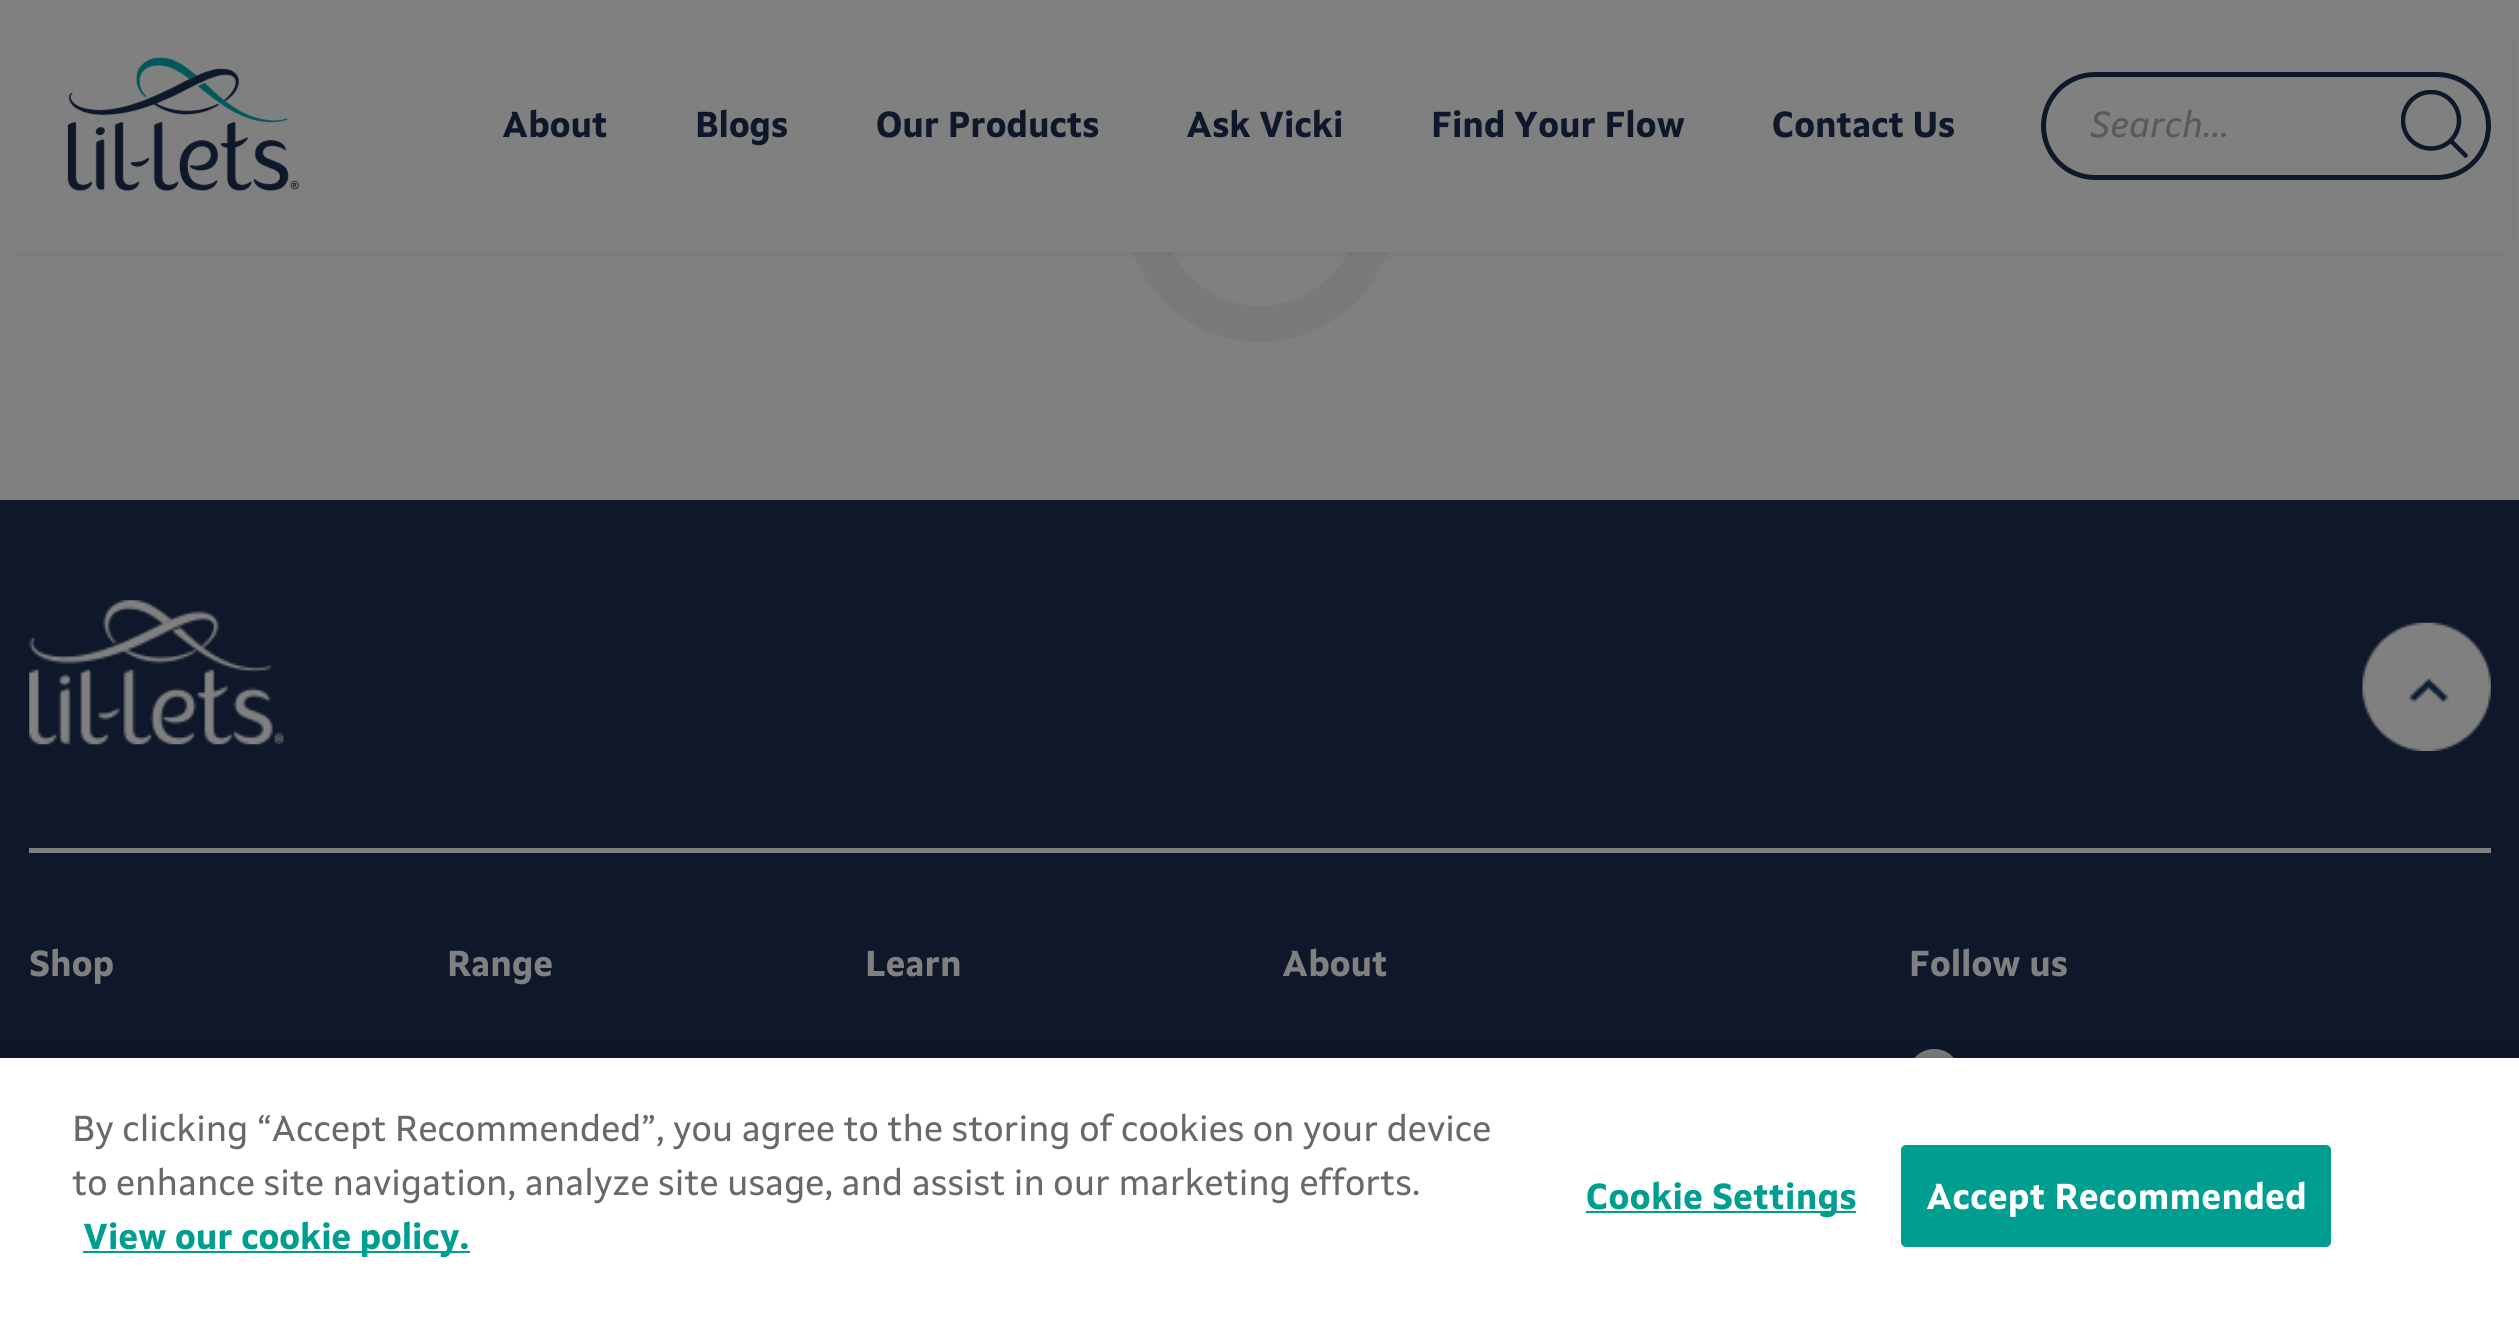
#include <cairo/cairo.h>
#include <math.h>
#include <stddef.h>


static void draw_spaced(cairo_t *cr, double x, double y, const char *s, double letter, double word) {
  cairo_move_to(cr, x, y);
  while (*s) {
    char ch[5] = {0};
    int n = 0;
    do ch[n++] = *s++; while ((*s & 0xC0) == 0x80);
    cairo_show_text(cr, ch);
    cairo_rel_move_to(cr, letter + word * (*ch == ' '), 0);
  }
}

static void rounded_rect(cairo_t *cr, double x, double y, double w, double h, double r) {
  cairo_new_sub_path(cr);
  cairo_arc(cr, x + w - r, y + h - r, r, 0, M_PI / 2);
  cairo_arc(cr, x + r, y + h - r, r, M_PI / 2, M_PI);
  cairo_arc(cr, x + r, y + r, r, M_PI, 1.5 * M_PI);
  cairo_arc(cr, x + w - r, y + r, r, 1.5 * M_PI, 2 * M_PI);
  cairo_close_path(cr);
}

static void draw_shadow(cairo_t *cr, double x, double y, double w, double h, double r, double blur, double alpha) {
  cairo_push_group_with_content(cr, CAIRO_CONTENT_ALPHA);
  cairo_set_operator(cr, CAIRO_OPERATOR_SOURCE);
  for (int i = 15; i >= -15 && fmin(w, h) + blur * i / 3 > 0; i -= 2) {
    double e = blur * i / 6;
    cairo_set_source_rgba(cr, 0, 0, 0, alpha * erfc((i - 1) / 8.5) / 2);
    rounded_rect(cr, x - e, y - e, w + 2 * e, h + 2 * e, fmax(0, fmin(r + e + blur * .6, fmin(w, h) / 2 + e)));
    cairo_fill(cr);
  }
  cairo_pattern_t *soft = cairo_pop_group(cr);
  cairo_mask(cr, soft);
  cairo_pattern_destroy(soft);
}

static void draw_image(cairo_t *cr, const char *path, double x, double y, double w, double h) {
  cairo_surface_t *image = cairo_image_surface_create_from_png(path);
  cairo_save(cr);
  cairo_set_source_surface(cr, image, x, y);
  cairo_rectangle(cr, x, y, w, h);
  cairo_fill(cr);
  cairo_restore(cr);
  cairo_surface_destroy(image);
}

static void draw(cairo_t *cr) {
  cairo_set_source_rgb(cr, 128 / 255.0, 128 / 255.0, 128 / 255.0);
  cairo_paint(cr);
  cairo_new_path(cr);
  cairo_move_to(cr, 1342.5, 124.5);
  cairo_curve_to(cr, 1364.5, 146, 1377, 176, 1377, 207);
  cairo_curve_to(cr, 1377, 311, 1250.5, 363, 1177.5, 289.5);
  cairo_curve_to(cr, 1161, 273.5, 1150, 252.5, 1145.5, 230);
  cairo_curve_to(cr, 1137.5, 192, 1150, 151.5, 1177.5, 124.5);
  cairo_set_source_rgb(cr, 122 / 255.0, 122 / 255.0, 122 / 255.0);
  cairo_set_line_width(cr, 36);
  cairo_stroke(cr);
  cairo_set_source_rgb(cr, 60 / 255.0, 60 / 255.0, 60 / 255.0);
  draw_shadow(cr, 23, 34, 2475, 207, 0, 8, 1);
  cairo_set_source_rgb(cr, 128 / 255.0, 128 / 255.0, 128 / 255.0);
  cairo_rectangle(cr, 9, 20, 2503, 232);
  cairo_fill(cr);
  draw_image(cr, "images/1.png", 67, 57, 232, 135);
  rounded_rect(cr, 2043.5, 74.5, 445, 103, 51.5);
  cairo_set_source_rgb(cr, 15 / 255.0, 24 / 255.0, 43 / 255.0);
  cairo_set_line_width(cr, 5);
  cairo_stroke(cr);
  cairo_save(cr);
  cairo_rectangle(cr, 2401, 90, 67, 68);
  cairo_clip(cr);
  cairo_new_path(cr);
  cairo_move_to(cr, 2459, 120.5);
  cairo_curve_to(cr, 2459, 136, 2446.5, 148.5, 2431, 148.5);
  cairo_curve_to(cr, 2415.5, 148.5, 2403, 136, 2403, 120.5);
  cairo_curve_to(cr, 2403, 105, 2415.5, 92, 2431, 92);
  cairo_curve_to(cr, 2446.5, 92, 2459, 105, 2459, 120.5);
  cairo_close_path(cr);
  cairo_set_line_width(cr, 4.5);
  cairo_set_line_cap(cr, CAIRO_LINE_CAP_ROUND);
  cairo_set_line_join(cr, CAIRO_LINE_JOIN_ROUND);
  cairo_stroke(cr);
  cairo_restore(cr);
  cairo_new_path(cr);
  cairo_move_to(cr, 2452, 142);
  cairo_line_to(cr, 2465.5, 155.5);
  cairo_set_line_width(cr, 4.5);
  cairo_set_line_cap(cr, CAIRO_LINE_CAP_ROUND);
  cairo_set_line_join(cr, CAIRO_LINE_JOIN_ROUND);
  cairo_stroke(cr);
  cairo_rectangle(cr, 0, 500, 2519, 558);
  cairo_fill(cr);
  cairo_set_source_rgb(cr, 128 / 255.0, 128 / 255.0, 128 / 255.0);
  cairo_rectangle(cr, 29, 848, 2462, 5);
  cairo_fill(cr);
  draw_image(cr, "images/2.png", 29, 600, 255, 145);
  draw_image(cr, "images/3.png", 2362, 622, 129, 129);
  draw_image(cr, "images/4.png", 1914, 1049, 40, 9);
  cairo_set_source_rgb(cr, 0, 0, 0);
  draw_shadow(cr, 0, 1058, 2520, 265, 0, 20, 0.2);
  cairo_set_source_rgb(cr, 1, 1, 1);
  cairo_rectangle(cr, 0, 1058, 2519, 264);
  cairo_fill(cr);
  cairo_set_source_rgb(cr, 0, 158 / 255.0, 144 / 255.0);
  cairo_rectangle(cr, 83, 1251, 387, 2);
  cairo_fill(cr);
  cairo_rectangle(cr, 1586, 1211, 270, 2);
  cairo_fill(cr);
  rounded_rect(cr, 1902, 1146, 428, 100, 4);
  cairo_fill_preserve(cr);
  cairo_set_line_width(cr, 2);
  cairo_set_line_cap(cr, CAIRO_LINE_CAP_BUTT);
  cairo_set_line_join(cr, CAIRO_LINE_JOIN_MITER);
  cairo_stroke(cr);
  cairo_select_font_face(cr, "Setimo", CAIRO_FONT_SLANT_NORMAL, CAIRO_FONT_WEIGHT_BOLD);
  cairo_set_font_size(cr, 36);
  cairo_set_source_rgb(cr, 15 / 255.0, 24 / 255.0, 43 / 255.0);
  cairo_move_to(cr, 502, 137);
  cairo_show_text(cr, "About");
  cairo_move_to(cr, 695, 137);
  cairo_show_text(cr, "Blogs");
  cairo_move_to(cr, 876, 137);
  cairo_show_text(cr, "Our Products");
  cairo_move_to(cr, 1186, 137);
  cairo_show_text(cr, "Ask Vicki");
  cairo_move_to(cr, 1431, 137);
  cairo_show_text(cr, "Find Your Flow");
  cairo_move_to(cr, 1772, 137);
  cairo_show_text(cr, "Contact Us");
  cairo_select_font_face(cr, "Setimo", CAIRO_FONT_SLANT_ITALIC, CAIRO_FONT_WEIGHT_NORMAL);
  cairo_set_source_rgb(cr, 88 / 255.0, 89 / 255.0, 93 / 255.0);
  cairo_move_to(cr, 2090, 137);
  cairo_show_text(cr, "Search...");
  cairo_select_font_face(cr, "Setimo", CAIRO_FONT_SLANT_NORMAL, CAIRO_FONT_WEIGHT_BOLD);
  cairo_set_source_rgb(cr, 128 / 255.0, 128 / 255.0, 128 / 255.0);
  cairo_move_to(cr, 29, 976);
  cairo_show_text(cr, "Shop");
  cairo_move_to(cr, 447, 976);
  cairo_show_text(cr, "Range");
  cairo_move_to(cr, 865, 976);
  cairo_show_text(cr, "Learn");
  cairo_move_to(cr, 1282, 976);
  cairo_show_text(cr, "About");
  cairo_move_to(cr, 1909, 976);
  cairo_show_text(cr, "Follow us");
  cairo_select_font_face(cr, "Setimo", CAIRO_FONT_SLANT_NORMAL, CAIRO_FONT_WEIGHT_NORMAL);
  cairo_set_source_rgb(cr, 105 / 255.0, 105 / 255.0, 105 / 255.0);
  cairo_move_to(cr, 72, 1141);
  cairo_show_text(cr, "By clicking “Accept Recommended”, you agree to the storing of cookies on your device");
  cairo_move_to(cr, 72, 1195);
  cairo_show_text(cr, "to enhance site navigation, analyze site usage, and assist in our marketing efforts.");
  cairo_select_font_face(cr, "Setimo", CAIRO_FONT_SLANT_NORMAL, CAIRO_FONT_WEIGHT_BOLD);
  cairo_set_source_rgb(cr, 0, 158 / 255.0, 144 / 255.0);
  cairo_move_to(cr, 83, 1249);
  cairo_show_text(cr, "View our cookie policy.");
  draw_spaced(cr, 1586, 1209, "Cookie Settings", 0.4, 0);
  cairo_set_source_rgb(cr, 1, 1, 1);
  draw_spaced(cr, 1926, 1209, "Accept Recommended", 0.4, 0);
}

int main(void) {
  cairo_surface_t *surface = cairo_image_surface_create(CAIRO_FORMAT_RGB24, 2519, 1322);
  cairo_t *cr = cairo_create(surface);
  cairo_font_options_t *options = cairo_font_options_create();
  cairo_font_options_set_hint_metrics(options, CAIRO_HINT_METRICS_OFF);
  cairo_font_options_set_hint_style(options, CAIRO_HINT_STYLE_NONE);
  cairo_set_font_options(cr, options);
  cairo_set_miter_limit(cr, 4);
  draw(cr);
  cairo_surface_write_to_png(surface, "out.png");
  cairo_font_options_destroy(options);
  cairo_destroy(cr);
  cairo_surface_destroy(surface);
  return 0;
}
